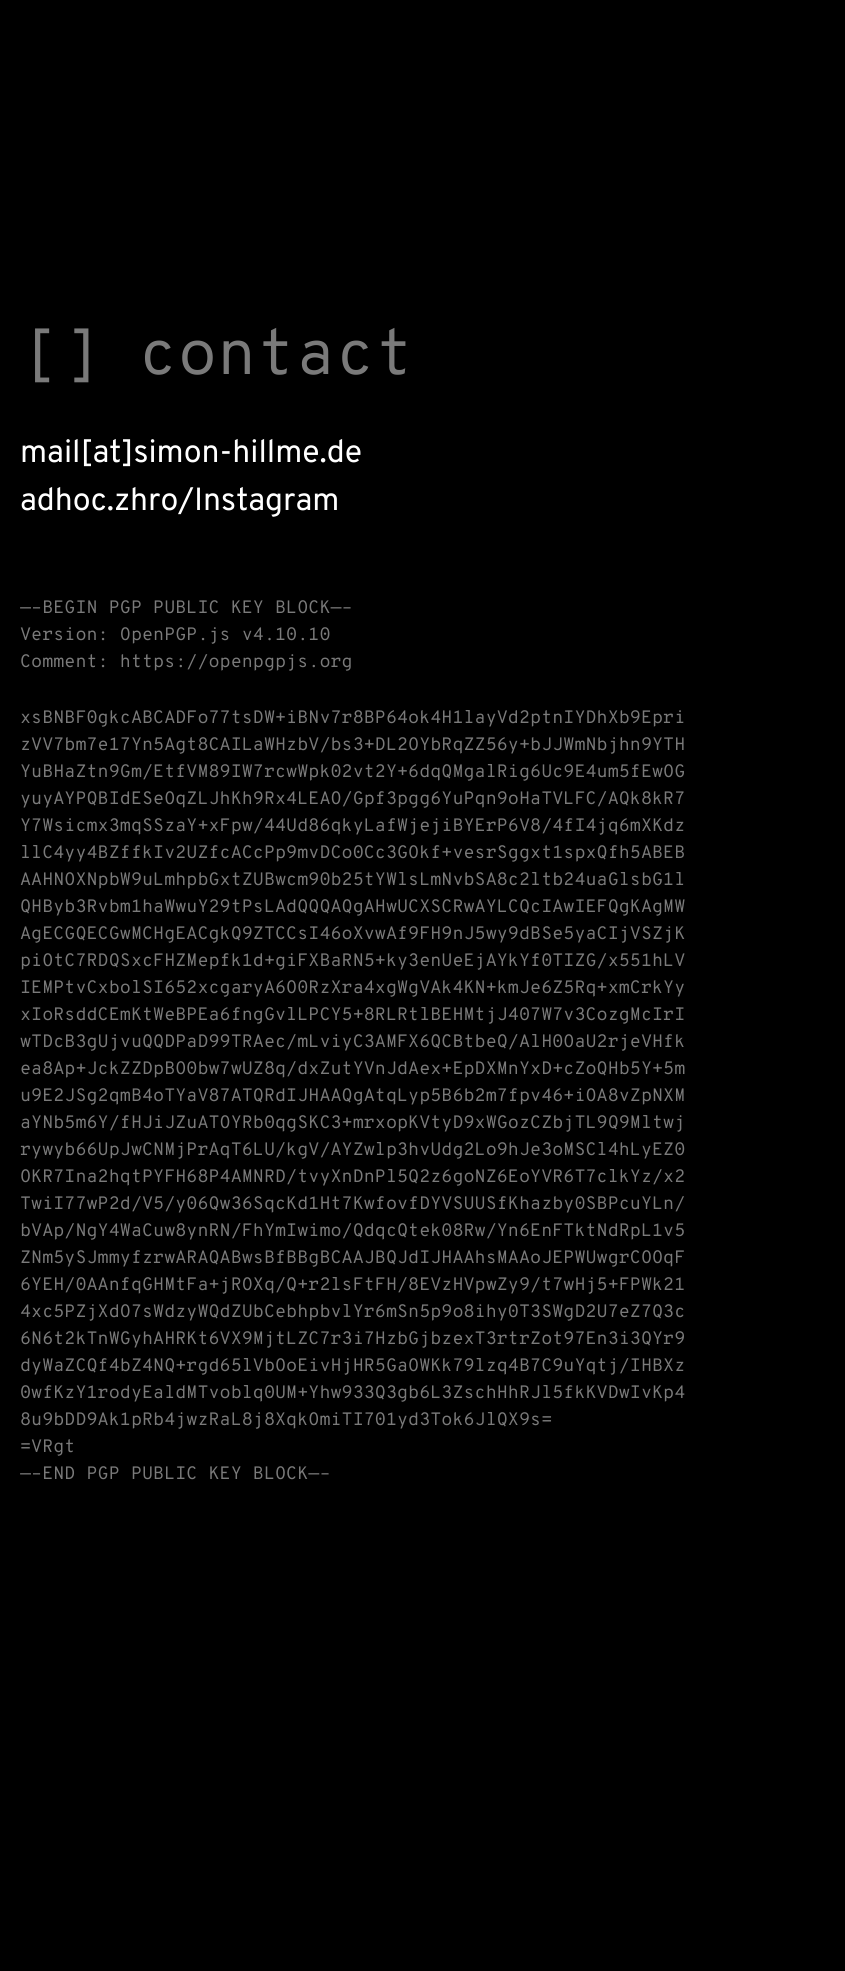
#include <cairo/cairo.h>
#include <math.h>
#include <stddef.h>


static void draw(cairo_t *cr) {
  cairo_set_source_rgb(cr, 0, 0, 0);
  cairo_paint(cr);
  cairo_select_font_face(cr, "Overpass Mono", CAIRO_FONT_SLANT_NORMAL, CAIRO_FONT_WEIGHT_NORMAL);
  cairo_set_font_size(cr, 64);
  cairo_set_source_rgb(cr, 122 / 255.0, 122 / 255.0, 122 / 255.0);
  cairo_move_to(cr, 20, 374);
  cairo_show_text(cr, "[] contact");
  cairo_select_font_face(cr, "Overpass", CAIRO_FONT_SLANT_NORMAL, CAIRO_FONT_WEIGHT_NORMAL);
  cairo_set_font_size(cr, 32);
  cairo_set_source_rgb(cr, 1, 1, 1);
  cairo_move_to(cr, 20, 462);
  cairo_show_text(cr, "mail[at]simon-hillme.de");
  cairo_move_to(cr, 20, 510);
  cairo_show_text(cr, "adhoc.zhro/Instagram");
  cairo_select_font_face(cr, "Overpass Mono", CAIRO_FONT_SLANT_NORMAL, CAIRO_FONT_WEIGHT_NORMAL);
  cairo_set_font_size(cr, 18);
  cairo_set_source_rgb(cr, 122 / 255.0, 122 / 255.0, 122 / 255.0);
  cairo_move_to(cr, 20, 613);
  cairo_show_text(cr, "—–BEGIN PGP PUBLIC KEY BLOCK—–");
  cairo_move_to(cr, 20, 640);
  cairo_show_text(cr, "Version: OpenPGP.js v4.10.10");
  cairo_move_to(cr, 20, 667);
  cairo_show_text(cr, "Comment: https://openpgpjs.org");
  cairo_move_to(cr, 20, 723);
  cairo_show_text(cr, "xsBNBF0gkcABCADFo77tsDW+iBNv7r8BP64ok4H1layVd2ptnIYDhXb9Epri");
  cairo_move_to(cr, 20, 750);
  cairo_show_text(cr, "zVV7bm7e17Yn5Agt8CAILaWHzbV/bs3+DL2OYbRqZZ56y+bJJWmNbjhn9YTH");
  cairo_move_to(cr, 20, 777);
  cairo_show_text(cr, "YuBHaZtn9Gm/EtfVM89IW7rcwWpk02vt2Y+6dqQMgalRig6Uc9E4um5fEwOG");
  cairo_move_to(cr, 20, 804);
  cairo_show_text(cr, "yuyAYPQBIdESeOqZLJhKh9Rx4LEAO/Gpf3pgg6YuPqn9oHaTVLFC/AQk8kR7");
  cairo_move_to(cr, 20, 831);
  cairo_show_text(cr, "Y7Wsicmx3mqSSzaY+xFpw/44Ud86qkyLafWjejiBYErP6V8/4fI4jq6mXKdz");
  cairo_move_to(cr, 20, 858);
  cairo_show_text(cr, "llC4yy4BZffkIv2UZfcACcPp9mvDCo0Cc3GOkf+vesrSggxt1spxQfh5ABEB");
  cairo_move_to(cr, 20, 885);
  cairo_show_text(cr, "AAHNOXNpbW9uLmhpbGxtZUBwcm90b25tYWlsLmNvbSA8c2ltb24uaGlsbG1l");
  cairo_move_to(cr, 20, 912);
  cairo_show_text(cr, "QHByb3Rvbm1haWwuY29tPsLAdQQQAQgAHwUCXSCRwAYLCQcIAwIEFQgKAgMW");
  cairo_move_to(cr, 20, 939);
  cairo_show_text(cr, "AgECGQECGwMCHgEACgkQ9ZTCCsI46oXvwAf9FH9nJ5wy9dBSe5yaCIjVSZjK");
  cairo_move_to(cr, 20, 966);
  cairo_show_text(cr, "piOtC7RDQSxcFHZMepfk1d+giFXBaRN5+ky3enUeEjAYkYf0TIZG/x551hLV");
  cairo_move_to(cr, 20, 993);
  cairo_show_text(cr, "IEMPtvCxbolSI652xcgaryA6O0RzXra4xgWgVAk4KN+kmJe6Z5Rq+xmCrkYy");
  cairo_move_to(cr, 20, 1020);
  cairo_show_text(cr, "xIoRsddCEmKtWeBPEa6fngGvlLPCY5+8RLRtlBEHMtjJ407W7v3CozgMcIrI");
  cairo_move_to(cr, 20, 1047);
  cairo_show_text(cr, "wTDcB3gUjvuQQDPaD99TRAec/mLviyC3AMFX6QCBtbeQ/AlH0OaU2rjeVHfk");
  cairo_move_to(cr, 20, 1074);
  cairo_show_text(cr, "ea8Ap+JckZZDpBO0bw7wUZ8q/dxZutYVnJdAex+EpDXMnYxD+cZoQHb5Y+5m");
  cairo_move_to(cr, 20, 1101);
  cairo_show_text(cr, "u9E2JSg2qmB4oTYaV87ATQRdIJHAAQgAtqLyp5B6b2m7fpv46+iOA8vZpNXM");
  cairo_move_to(cr, 20, 1128);
  cairo_show_text(cr, "aYNb5m6Y/fHJiJZuATOYRb0qgSKC3+mrxopKVtyD9xWGozCZbjTL9Q9Mltwj");
  cairo_move_to(cr, 20, 1155);
  cairo_show_text(cr, "rywyb66UpJwCNMjPrAqT6LU/kgV/AYZwlp3hvUdg2Lo9hJe3oMSCl4hLyEZ0");
  cairo_move_to(cr, 20, 1182);
  cairo_show_text(cr, "OKR7Ina2hqtPYFH68P4AMNRD/tvyXnDnPl5Q2z6goNZ6EoYVR6T7clkYz/x2");
  cairo_move_to(cr, 20, 1209);
  cairo_show_text(cr, "TwiI77wP2d/V5/y06Qw36SqcKd1Ht7KwfovfDYVSUUSfKhazby0SBPcuYLn/");
  cairo_move_to(cr, 20, 1236);
  cairo_show_text(cr, "bVAp/NgY4WaCuw8ynRN/FhYmIwimo/QdqcQtek08Rw/Yn6EnFTktNdRpL1v5");
  cairo_move_to(cr, 20, 1263);
  cairo_show_text(cr, "ZNm5ySJmmyfzrwARAQABwsBfBBgBCAAJBQJdIJHAAhsMAAoJEPWUwgrCOOqF");
  cairo_move_to(cr, 20, 1290);
  cairo_show_text(cr, "6YEH/0AAnfqGHMtFa+jROXq/Q+r2lsFtFH/8EVzHVpwZy9/t7wHj5+FPWk21");
  cairo_move_to(cr, 20, 1317);
  cairo_show_text(cr, "4xc5PZjXdO7sWdzyWQdZUbCebhpbvlYr6mSn5p9o8ihy0T3SWgD2U7eZ7Q3c");
  cairo_move_to(cr, 20, 1344);
  cairo_show_text(cr, "6N6t2kTnWGyhAHRKt6VX9MjtLZC7r3i7HzbGjbzexT3rtrZot97En3i3QYr9");
  cairo_move_to(cr, 20, 1371);
  cairo_show_text(cr, "dyWaZCQf4bZ4NQ+rgd65lVbOoEivHjHR5GaOWKk79lzq4B7C9uYqtj/IHBXz");
  cairo_move_to(cr, 20, 1398);
  cairo_show_text(cr, "0wfKzY1rodyEaldMTvoblq0UM+Yhw933Q3gb6L3ZschHhRJl5fkKVDwIvKp4");
  cairo_move_to(cr, 20, 1425);
  cairo_show_text(cr, "8u9bDD9Ak1pRb4jwzRaL8j8XqkOmiTI701yd3Tok6JlQX9s=");
  cairo_move_to(cr, 20, 1452);
  cairo_show_text(cr, "=VRgt");
  cairo_move_to(cr, 20, 1479);
  cairo_show_text(cr, "—–END PGP PUBLIC KEY BLOCK—–");
}

int main(void) {
  cairo_surface_t *surface = cairo_image_surface_create(CAIRO_FORMAT_RGB24, 845, 1971);
  cairo_t *cr = cairo_create(surface);
  cairo_font_options_t *options = cairo_font_options_create();
  cairo_font_options_set_hint_metrics(options, CAIRO_HINT_METRICS_OFF);
  cairo_font_options_set_hint_style(options, CAIRO_HINT_STYLE_NONE);
  cairo_set_font_options(cr, options);
  cairo_set_miter_limit(cr, 4);
  draw(cr);
  cairo_surface_write_to_png(surface, "out.png");
  cairo_font_options_destroy(options);
  cairo_destroy(cr);
  cairo_surface_destroy(surface);
  return 0;
}
